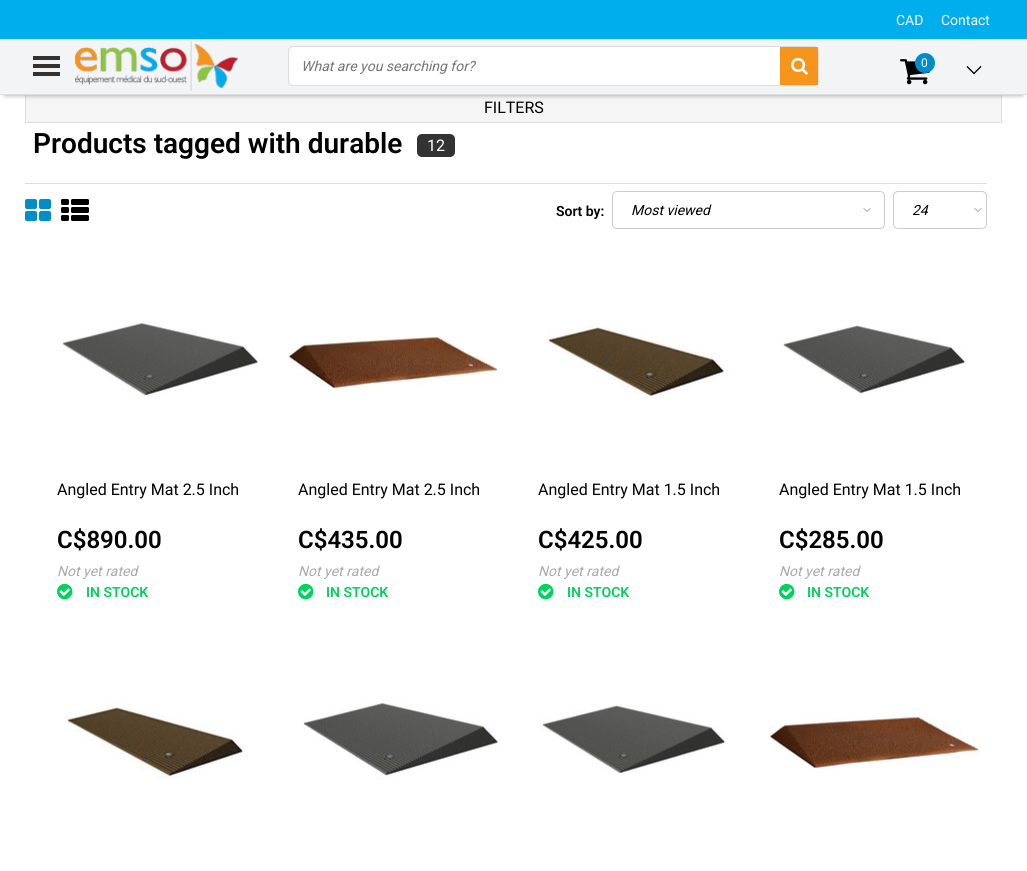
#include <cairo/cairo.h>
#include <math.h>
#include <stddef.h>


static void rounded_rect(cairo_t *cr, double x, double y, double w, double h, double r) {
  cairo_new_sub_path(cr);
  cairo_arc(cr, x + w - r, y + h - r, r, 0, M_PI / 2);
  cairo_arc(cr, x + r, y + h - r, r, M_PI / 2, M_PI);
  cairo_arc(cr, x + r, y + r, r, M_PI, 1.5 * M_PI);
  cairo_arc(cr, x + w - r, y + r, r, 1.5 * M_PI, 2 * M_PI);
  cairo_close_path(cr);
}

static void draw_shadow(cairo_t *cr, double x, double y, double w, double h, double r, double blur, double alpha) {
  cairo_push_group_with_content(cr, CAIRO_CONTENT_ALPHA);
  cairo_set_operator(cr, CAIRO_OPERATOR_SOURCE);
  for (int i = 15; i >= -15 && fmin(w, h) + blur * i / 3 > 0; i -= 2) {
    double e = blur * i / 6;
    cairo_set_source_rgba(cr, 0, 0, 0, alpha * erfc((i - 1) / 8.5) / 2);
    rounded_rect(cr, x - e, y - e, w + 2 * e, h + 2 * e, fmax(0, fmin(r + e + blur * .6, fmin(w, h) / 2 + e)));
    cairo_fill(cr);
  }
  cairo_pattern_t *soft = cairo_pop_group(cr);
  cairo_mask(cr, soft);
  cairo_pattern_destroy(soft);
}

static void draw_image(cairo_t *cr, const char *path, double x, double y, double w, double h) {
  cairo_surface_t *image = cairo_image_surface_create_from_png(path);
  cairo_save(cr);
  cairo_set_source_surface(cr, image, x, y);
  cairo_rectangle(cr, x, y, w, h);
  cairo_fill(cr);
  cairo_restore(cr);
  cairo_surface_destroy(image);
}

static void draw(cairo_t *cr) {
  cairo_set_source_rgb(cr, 1, 1, 1);
  cairo_paint(cr);
  cairo_set_source_rgb(cr, 0, 173 / 255.0, 237 / 255.0);
  cairo_rectangle(cr, 0, 0, 1027, 39);
  cairo_fill(cr);
  cairo_set_source_rgb(cr, 221 / 255.0, 221 / 255.0, 221 / 255.0);
  cairo_rectangle(cr, 0, 39, 1027, 1);
  cairo_fill(cr);
  cairo_rectangle(cr, 1001, 91, 1, 32);
  cairo_fill(cr);
  cairo_rectangle(cr, 25, 91, 1, 32);
  cairo_fill(cr);
  cairo_set_source_rgb(cr, 245 / 255.0, 245 / 255.0, 245 / 255.0);
  cairo_rectangle(cr, 26, 95, 975, 28);
  cairo_fill(cr);
  cairo_set_source_rgb(cr, 0, 0, 0);
  draw_shadow(cr, 5, 50, 1017, 45, 0, 2.5, 0.4);
  cairo_set_source_rgb(cr, 243 / 255.0, 244 / 255.0, 246 / 255.0);
  cairo_rectangle(cr, 0, 40, 1027, 54);
  cairo_fill(cr);
  cairo_set_source_rgb(cr, 221 / 255.0, 221 / 255.0, 221 / 255.0);
  cairo_rectangle(cr, 0, 94, 1027, 1);
  cairo_fill(cr);
  cairo_set_source_rgb(cr, 52 / 255.0, 49 / 255.0, 47 / 255.0);
  cairo_rectangle(cr, 33, 56, 27, 4);
  cairo_fill(cr);
  cairo_rectangle(cr, 33, 64, 27, 4);
  cairo_fill(cr);
  cairo_rectangle(cr, 33, 72, 27, 4);
  cairo_fill(cr);
  draw_image(cr, "images/1.png", 75, 41, 163, 50);
  rounded_rect(cr, 288.5, 46.5, 530, 39, 4.5);
  cairo_set_source_rgb(cr, 221 / 255.0, 221 / 255.0, 221 / 255.0);
  cairo_set_line_width(cr, 1);
  cairo_stroke(cr);
  cairo_set_source_rgb(cr, 1, 1, 1);
  rounded_rect(cr, 289, 47, 529, 38, 5);
  cairo_fill(cr);
  cairo_set_source_rgb(cr, 246 / 255.0, 148 / 255.0, 27 / 255.0);
  cairo_rectangle(cr, 780, 47, 38, 38);
  cairo_fill(cr);
  draw_image(cr, "images/2.png", 791, 57, 17, 18);
  draw_image(cr, "images/3.png", 900, 59, 30, 26);
  cairo_set_source_rgb(cr, 0, 141 / 255.0, 203 / 255.0);
  cairo_arc(cr, 925, 63, 10, 0, 2 * M_PI);
  cairo_fill(cr);
  draw_image(cr, "images/4.png", 966, 66, 16, 9);
  cairo_set_source_rgb(cr, 221 / 255.0, 221 / 255.0, 221 / 255.0);
  cairo_new_path(cr);
  cairo_move_to(cr, 1001, 123);
  cairo_line_to(cr, 26, 123);
  cairo_line_to(cr, 27, 122);
  cairo_line_to(cr, 1000, 122);
  cairo_close_path(cr);
  cairo_fill(cr);
  cairo_set_source_rgb(cr, 51 / 255.0, 51 / 255.0, 51 / 255.0);
  rounded_rect(cr, 417, 134, 38, 23, 5);
  cairo_fill(cr);
  cairo_set_source_rgb(cr, 221 / 255.0, 221 / 255.0, 221 / 255.0);
  cairo_rectangle(cr, 25, 183, 962, 1);
  cairo_fill(cr);
  draw_image(cr, "images/5.png", 25, 199, 26, 22);
  draw_image(cr, "images/6.png", 61, 199, 28, 22);
  draw_image(cr, "images/7.png", 863, 208, 8, 4);
  rounded_rect(cr, 612.5, 191.5, 272, 37, 4.5);
  cairo_set_source_rgb(cr, 204 / 255.0, 204 / 255.0, 204 / 255.0);
  cairo_stroke(cr);
  draw_image(cr, "images/7.png", 974, 208, 8, 4);
  rounded_rect(cr, 893.5, 191.5, 93, 37, 4.5);
  cairo_stroke(cr);
  draw_image(cr, "images/8.png", 62, 321, 196, 76);
  draw_image(cr, "images/9.png", 57, 583, 16, 17);
  draw_image(cr, "images/10.png", 288, 336, 211, 57);
  draw_image(cr, "images/9.png", 298, 583, 16, 17);
  draw_image(cr, "images/11.png", 546, 322, 183, 78);
  draw_image(cr, "images/9.png", 538, 583, 16, 17);
  draw_image(cr, "images/12.png", 780, 325, 186, 69);
  draw_image(cr, "images/9.png", 779, 583, 16, 17);
  draw_image(cr, "images/13.png", 65, 702, 183, 78);
  draw_image(cr, "images/14.png", 303, 701, 195, 79);
  draw_image(cr, "images/15.png", 539, 705, 187, 69);
  draw_image(cr, "images/16.png", 769, 716, 211, 56);
  cairo_select_font_face(cr, "Roboto", CAIRO_FONT_SLANT_NORMAL, CAIRO_FONT_WEIGHT_NORMAL);
  cairo_set_font_size(cr, 14);
  cairo_set_source_rgb(cr, 1, 1, 1);
  cairo_move_to(cr, 896, 25);
  cairo_show_text(cr, "CAD");
  cairo_move_to(cr, 941, 25);
  cairo_show_text(cr, "Contact");
  cairo_select_font_face(cr, "Roboto", CAIRO_FONT_SLANT_ITALIC, CAIRO_FONT_WEIGHT_NORMAL);
  cairo_set_source_rgb(cr, 117 / 255.0, 117 / 255.0, 117 / 255.0);
  cairo_move_to(cr, 301, 71);
  cairo_show_text(cr, "What are you searching for?");
  cairo_select_font_face(cr, "Roboto", CAIRO_FONT_SLANT_NORMAL, CAIRO_FONT_WEIGHT_NORMAL);
  cairo_set_font_size(cr, 12);
  cairo_set_source_rgb(cr, 1, 1, 1);
  cairo_move_to(cr, 921, 67);
  cairo_show_text(cr, "0");
  cairo_set_font_size(cr, 16);
  cairo_set_source_rgb(cr, 0, 0, 0);
  cairo_move_to(cr, 484, 113);
  cairo_show_text(cr, "FILTERS");
  cairo_select_font_face(cr, "Roboto SemiBold", CAIRO_FONT_SLANT_NORMAL, CAIRO_FONT_WEIGHT_NORMAL);
  cairo_set_font_size(cr, 28);
  cairo_move_to(cr, 33, 153);
  cairo_show_text(cr, "Products tagged with durable");
  cairo_select_font_face(cr, "Roboto", CAIRO_FONT_SLANT_NORMAL, CAIRO_FONT_WEIGHT_NORMAL);
  cairo_set_font_size(cr, 16);
  cairo_set_source_rgb(cr, 1, 1, 1);
  cairo_move_to(cr, 427, 151);
  cairo_show_text(cr, "12");
  cairo_select_font_face(cr, "Roboto SemiBold", CAIRO_FONT_SLANT_NORMAL, CAIRO_FONT_WEIGHT_NORMAL);
  cairo_set_font_size(cr, 14);
  cairo_set_source_rgb(cr, 0, 0, 0);
  cairo_move_to(cr, 556, 216);
  cairo_show_text(cr, "Sort by:");
  cairo_select_font_face(cr, "Roboto", CAIRO_FONT_SLANT_ITALIC, CAIRO_FONT_WEIGHT_NORMAL);
  cairo_move_to(cr, 631, 215);
  cairo_show_text(cr, "Most viewed");
  cairo_move_to(cr, 912, 215);
  cairo_show_text(cr, "24");
  cairo_select_font_face(cr, "Roboto", CAIRO_FONT_SLANT_NORMAL, CAIRO_FONT_WEIGHT_NORMAL);
  cairo_set_font_size(cr, 16);
  cairo_move_to(cr, 57, 495);
  cairo_show_text(cr, "Angled Entry Mat 2.5 Inch");
  cairo_select_font_face(cr, "Roboto SemiBold", CAIRO_FONT_SLANT_NORMAL, CAIRO_FONT_WEIGHT_NORMAL);
  cairo_set_font_size(cr, 24);
  cairo_move_to(cr, 57, 548);
  cairo_show_text(cr, "C$890.00");
  cairo_select_font_face(cr, "Roboto", CAIRO_FONT_SLANT_ITALIC, CAIRO_FONT_WEIGHT_NORMAL);
  cairo_set_font_size(cr, 14);
  cairo_set_source_rgb(cr, 170 / 255.0, 170 / 255.0, 170 / 255.0);
  cairo_move_to(cr, 57, 576);
  cairo_show_text(cr, "Not yet rated");
  cairo_select_font_face(cr, "Roboto SemiBold", CAIRO_FONT_SLANT_NORMAL, CAIRO_FONT_WEIGHT_NORMAL);
  cairo_set_source_rgb(cr, 0, 210 / 255.0, 94 / 255.0);
  cairo_move_to(cr, 86, 597);
  cairo_show_text(cr, "IN STOCK");
  cairo_select_font_face(cr, "Roboto", CAIRO_FONT_SLANT_NORMAL, CAIRO_FONT_WEIGHT_NORMAL);
  cairo_set_font_size(cr, 16);
  cairo_set_source_rgb(cr, 0, 0, 0);
  cairo_move_to(cr, 298, 495);
  cairo_show_text(cr, "Angled Entry Mat 2.5 Inch");
  cairo_select_font_face(cr, "Roboto SemiBold", CAIRO_FONT_SLANT_NORMAL, CAIRO_FONT_WEIGHT_NORMAL);
  cairo_set_font_size(cr, 24);
  cairo_move_to(cr, 298, 548);
  cairo_show_text(cr, "C$435.00");
  cairo_select_font_face(cr, "Roboto", CAIRO_FONT_SLANT_ITALIC, CAIRO_FONT_WEIGHT_NORMAL);
  cairo_set_font_size(cr, 14);
  cairo_set_source_rgb(cr, 170 / 255.0, 170 / 255.0, 170 / 255.0);
  cairo_move_to(cr, 298, 576);
  cairo_show_text(cr, "Not yet rated");
  cairo_select_font_face(cr, "Roboto SemiBold", CAIRO_FONT_SLANT_NORMAL, CAIRO_FONT_WEIGHT_NORMAL);
  cairo_set_source_rgb(cr, 0, 210 / 255.0, 94 / 255.0);
  cairo_move_to(cr, 326, 597);
  cairo_show_text(cr, "IN STOCK");
  cairo_select_font_face(cr, "Roboto", CAIRO_FONT_SLANT_NORMAL, CAIRO_FONT_WEIGHT_NORMAL);
  cairo_set_font_size(cr, 16);
  cairo_set_source_rgb(cr, 0, 0, 0);
  cairo_move_to(cr, 538, 495);
  cairo_show_text(cr, "Angled Entry Mat 1.5 Inch");
  cairo_select_font_face(cr, "Roboto SemiBold", CAIRO_FONT_SLANT_NORMAL, CAIRO_FONT_WEIGHT_NORMAL);
  cairo_set_font_size(cr, 24);
  cairo_move_to(cr, 538, 548);
  cairo_show_text(cr, "C$425.00");
  cairo_select_font_face(cr, "Roboto", CAIRO_FONT_SLANT_ITALIC, CAIRO_FONT_WEIGHT_NORMAL);
  cairo_set_font_size(cr, 14);
  cairo_set_source_rgb(cr, 170 / 255.0, 170 / 255.0, 170 / 255.0);
  cairo_move_to(cr, 538, 576);
  cairo_show_text(cr, "Not yet rated");
  cairo_select_font_face(cr, "Roboto SemiBold", CAIRO_FONT_SLANT_NORMAL, CAIRO_FONT_WEIGHT_NORMAL);
  cairo_set_source_rgb(cr, 0, 210 / 255.0, 94 / 255.0);
  cairo_move_to(cr, 567, 597);
  cairo_show_text(cr, "IN STOCK");
  cairo_select_font_face(cr, "Roboto", CAIRO_FONT_SLANT_NORMAL, CAIRO_FONT_WEIGHT_NORMAL);
  cairo_set_font_size(cr, 16);
  cairo_set_source_rgb(cr, 0, 0, 0);
  cairo_move_to(cr, 779, 495);
  cairo_show_text(cr, "Angled Entry Mat 1.5 Inch");
  cairo_select_font_face(cr, "Roboto SemiBold", CAIRO_FONT_SLANT_NORMAL, CAIRO_FONT_WEIGHT_NORMAL);
  cairo_set_font_size(cr, 24);
  cairo_move_to(cr, 779, 548);
  cairo_show_text(cr, "C$285.00");
  cairo_select_font_face(cr, "Roboto", CAIRO_FONT_SLANT_ITALIC, CAIRO_FONT_WEIGHT_NORMAL);
  cairo_set_font_size(cr, 14);
  cairo_set_source_rgb(cr, 170 / 255.0, 170 / 255.0, 170 / 255.0);
  cairo_move_to(cr, 779, 576);
  cairo_show_text(cr, "Not yet rated");
  cairo_select_font_face(cr, "Roboto SemiBold", CAIRO_FONT_SLANT_NORMAL, CAIRO_FONT_WEIGHT_NORMAL);
  cairo_set_source_rgb(cr, 0, 210 / 255.0, 94 / 255.0);
  cairo_move_to(cr, 807, 597);
  cairo_show_text(cr, "IN STOCK");
}

int main(void) {
  cairo_surface_t *surface = cairo_image_surface_create(CAIRO_FORMAT_RGB24, 1027, 871);
  cairo_t *cr = cairo_create(surface);
  cairo_font_options_t *options = cairo_font_options_create();
  cairo_font_options_set_hint_metrics(options, CAIRO_HINT_METRICS_OFF);
  cairo_font_options_set_hint_style(options, CAIRO_HINT_STYLE_NONE);
  cairo_set_font_options(cr, options);
  cairo_set_miter_limit(cr, 4);
  draw(cr);
  cairo_surface_write_to_png(surface, "out.png");
  cairo_font_options_destroy(options);
  cairo_destroy(cr);
  cairo_surface_destroy(surface);
  return 0;
}
